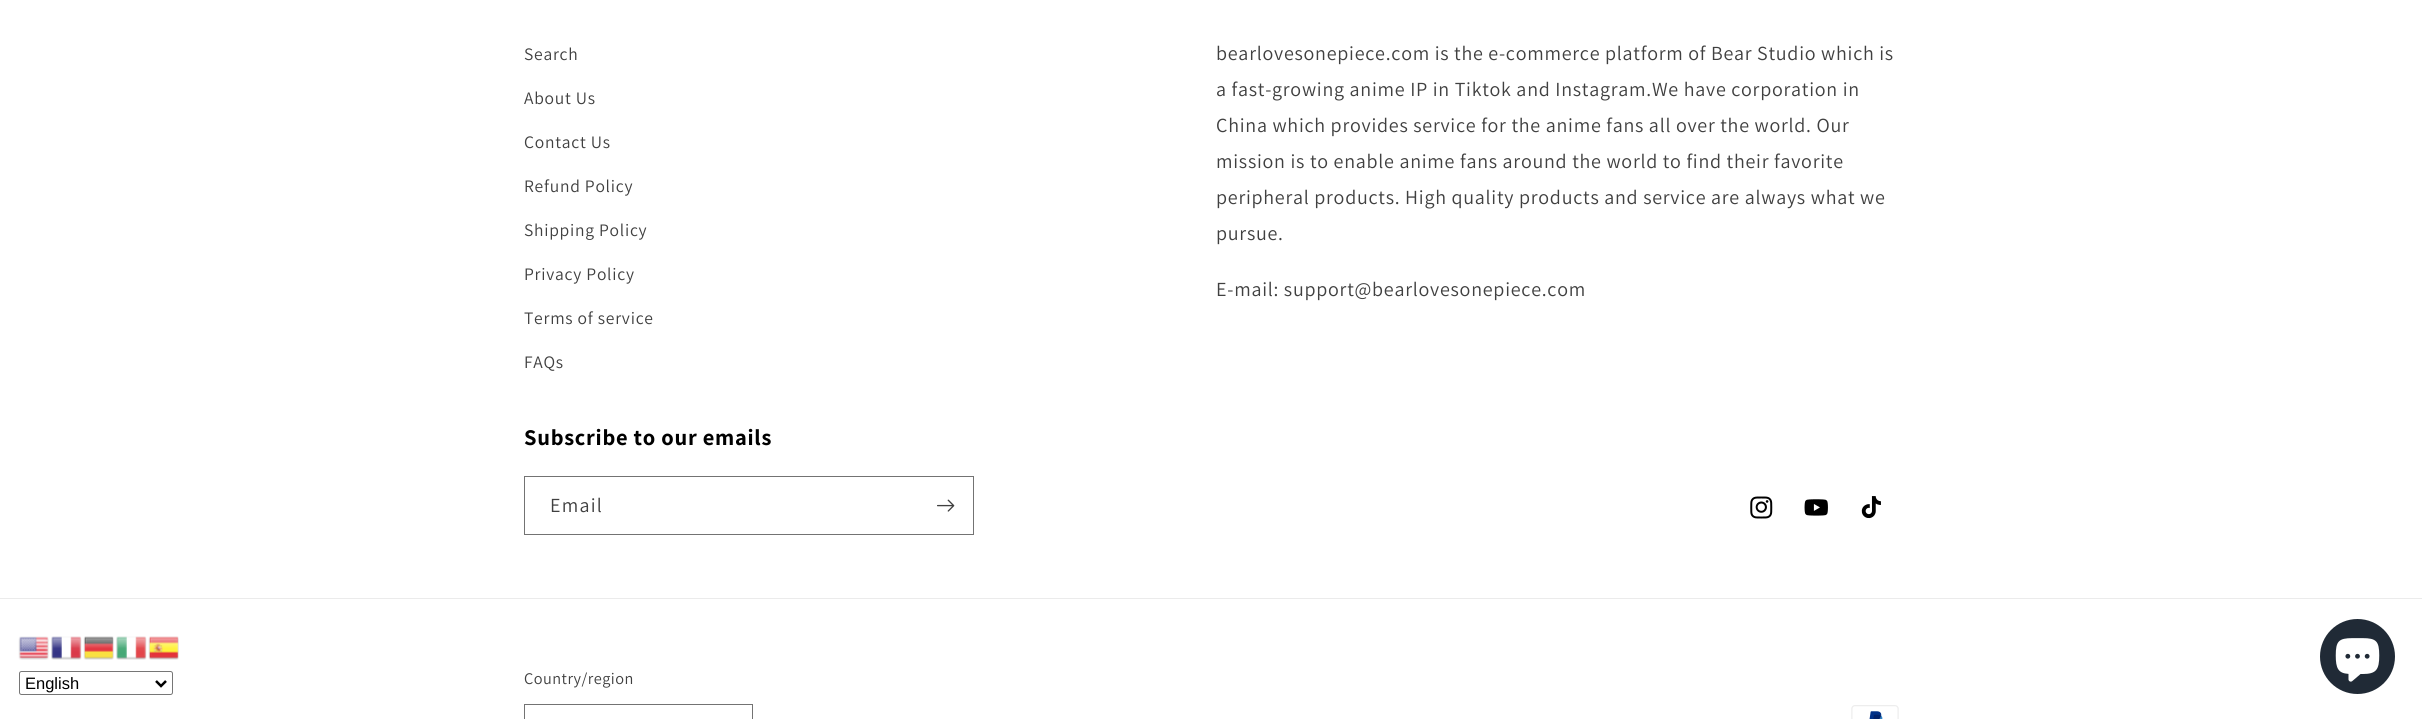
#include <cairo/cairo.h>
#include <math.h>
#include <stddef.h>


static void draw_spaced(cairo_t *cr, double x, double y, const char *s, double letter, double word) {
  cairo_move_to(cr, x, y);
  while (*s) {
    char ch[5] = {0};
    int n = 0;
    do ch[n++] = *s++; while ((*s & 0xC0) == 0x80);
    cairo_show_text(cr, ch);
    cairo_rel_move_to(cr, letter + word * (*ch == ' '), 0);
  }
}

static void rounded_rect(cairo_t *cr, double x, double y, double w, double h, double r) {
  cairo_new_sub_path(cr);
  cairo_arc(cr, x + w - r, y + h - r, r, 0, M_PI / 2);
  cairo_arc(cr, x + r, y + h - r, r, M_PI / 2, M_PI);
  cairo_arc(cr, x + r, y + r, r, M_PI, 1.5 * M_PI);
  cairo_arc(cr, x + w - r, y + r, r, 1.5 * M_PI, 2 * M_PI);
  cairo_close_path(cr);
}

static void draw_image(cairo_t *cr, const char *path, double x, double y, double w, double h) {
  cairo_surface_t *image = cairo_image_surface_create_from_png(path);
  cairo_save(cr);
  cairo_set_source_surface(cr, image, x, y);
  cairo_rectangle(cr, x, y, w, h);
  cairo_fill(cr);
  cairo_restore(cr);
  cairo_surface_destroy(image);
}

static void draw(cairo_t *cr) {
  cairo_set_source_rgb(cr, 1, 1, 1);
  cairo_paint(cr);
  draw_image(cr, "images/1.png", 18, 636, 31, 24);
  draw_image(cr, "images/2.png", 51, 636, 31, 24);
  draw_image(cr, "images/3.png", 83, 636, 31, 24);
  draw_image(cr, "images/4.png", 116, 636, 31, 24);
  draw_image(cr, "images/5.png", 148, 636, 31, 24);
  rounded_rect(cr, 19.5, 671.5, 153, 23, 2);
  cairo_set_source_rgb(cr, 118 / 255.0, 118 / 255.0, 118 / 255.0);
  cairo_set_line_width(cr, 1);
  cairo_stroke(cr);
  cairo_new_path(cr);
  cairo_move_to(cr, 156, 681);
  cairo_line_to(cr, 161, 686);
  cairo_line_to(cr, 166, 681);
  cairo_set_source_rgb(cr, 0, 0, 0);
  cairo_set_line_width(cr, 2.5);
  cairo_stroke(cr);
  cairo_rectangle(cr, 524.5, 476.5, 449, 58);
  cairo_set_source_rgb(cr, 115 / 255.0, 115 / 255.0, 115 / 255.0);
  cairo_set_line_width(cr, 1);
  cairo_stroke(cr);
  draw_image(cr, "images/6.png", 937, 499, 18, 13);
  draw_image(cr, "images/7.png", 1750, 496, 23, 23);
  draw_image(cr, "images/8.png", 1804, 499, 24, 17);
  draw_image(cr, "images/9.png", 1861, 496, 20, 23);
  cairo_set_source_rgb(cr, 235 / 255.0, 235 / 255.0, 235 / 255.0);
  cairo_rectangle(cr, 0, 598, 2422, 1);
  cairo_fill(cr);
  cairo_rectangle(cr, 524.5, 704.5, 228, 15);
  cairo_set_source_rgb(cr, 115 / 255.0, 115 / 255.0, 115 / 255.0);
  cairo_stroke(cr);
  draw_image(cr, "images/10.png", 1851, 705, 48, 14);
  cairo_set_source_rgb(cr, 32 / 255.0, 42 / 255.0, 54 / 255.0);
  cairo_arc(cr, 2357.5, 656.5, 37.5, 0, 2 * M_PI);
  cairo_fill(cr);
  draw_image(cr, "images/11.png", 2335, 638, 45, 44);
  cairo_select_font_face(cr, "Liberation Sans", CAIRO_FONT_SLANT_NORMAL, CAIRO_FONT_WEIGHT_NORMAL);
  cairo_set_font_size(cr, 16.5);
  cairo_set_source_rgb(cr, 0, 0, 0);
  cairo_move_to(cr, 25, 689);
  cairo_show_text(cr, "English");
  cairo_select_font_face(cr, "Assistant", CAIRO_FONT_SLANT_NORMAL, CAIRO_FONT_WEIGHT_NORMAL);
  cairo_set_font_size(cr, 17.5);
  cairo_set_source_rgb(cr, 64 / 255.0, 64 / 255.0, 64 / 255.0);
  draw_spaced(cr, 524, 60, "Search", 0.75, 0);
  draw_spaced(cr, 524, 104, "About Us", 0.75, 0);
  draw_spaced(cr, 524, 148, "Contact Us", 0.75, 0);
  draw_spaced(cr, 524, 192, "Refund Policy", 0.75, 0);
  draw_spaced(cr, 524, 236, "Shipping Policy", 0.75, 0);
  draw_spaced(cr, 524, 280, "Privacy Policy", 0.75, 0);
  draw_spaced(cr, 524, 324, "Terms of service", 0.75, 0);
  draw_spaced(cr, 524, 368, "FAQs", 0.75, 0);
  cairo_set_font_size(cr, 20);
  draw_spaced(cr, 1216, 60, "bearlovesonepiece.com is the e-commerce platform of Bear Studio which is", 0.75, 0);
  draw_spaced(cr, 1216, 96, "a fast-growing anime IP in Tiktok and Instagram.We have corporation in", 0.75, 0);
  draw_spaced(cr, 1216, 132, "China which provides service for the anime fans all over the world. Our", 0.75, 0);
  draw_spaced(cr, 1216, 168, "mission is to enable anime fans around the world to find their favorite", 0.75, 0);
  draw_spaced(cr, 1216, 204, "peripheral products. High quality products and service are always what we", 0.75, 0);
  draw_spaced(cr, 1216, 240, "pursue.", 0.75, 0);
  draw_spaced(cr, 1216, 296, "E-mail: support@bearlovesonepiece.com", 0.75, 0);
  cairo_select_font_face(cr, "Assistant", CAIRO_FONT_SLANT_NORMAL, CAIRO_FONT_WEIGHT_BOLD);
  cairo_set_font_size(cr, 22.5);
  cairo_set_source_rgb(cr, 0, 0, 0);
  draw_spaced(cr, 524, 445, "Subscribe to our emails", 0.75, 0);
  cairo_select_font_face(cr, "Assistant", CAIRO_FONT_SLANT_NORMAL, CAIRO_FONT_WEIGHT_NORMAL);
  cairo_set_font_size(cr, 20);
  cairo_set_source_rgb(cr, 64 / 255.0, 64 / 255.0, 64 / 255.0);
  draw_spaced(cr, 550, 512, "Email", 1.25, 0);
  cairo_set_font_size(cr, 16.25);
  draw_spaced(cr, 524, 684, "Country/region", 0.5, 0);
}

int main(void) {
  cairo_surface_t *surface = cairo_image_surface_create(CAIRO_FORMAT_RGB24, 2422, 719);
  cairo_t *cr = cairo_create(surface);
  cairo_font_options_t *options = cairo_font_options_create();
  cairo_font_options_set_hint_metrics(options, CAIRO_HINT_METRICS_OFF);
  cairo_font_options_set_hint_style(options, CAIRO_HINT_STYLE_NONE);
  cairo_set_font_options(cr, options);
  cairo_set_miter_limit(cr, 4);
  draw(cr);
  cairo_surface_write_to_png(surface, "out.png");
  cairo_font_options_destroy(options);
  cairo_destroy(cr);
  cairo_surface_destroy(surface);
  return 0;
}
